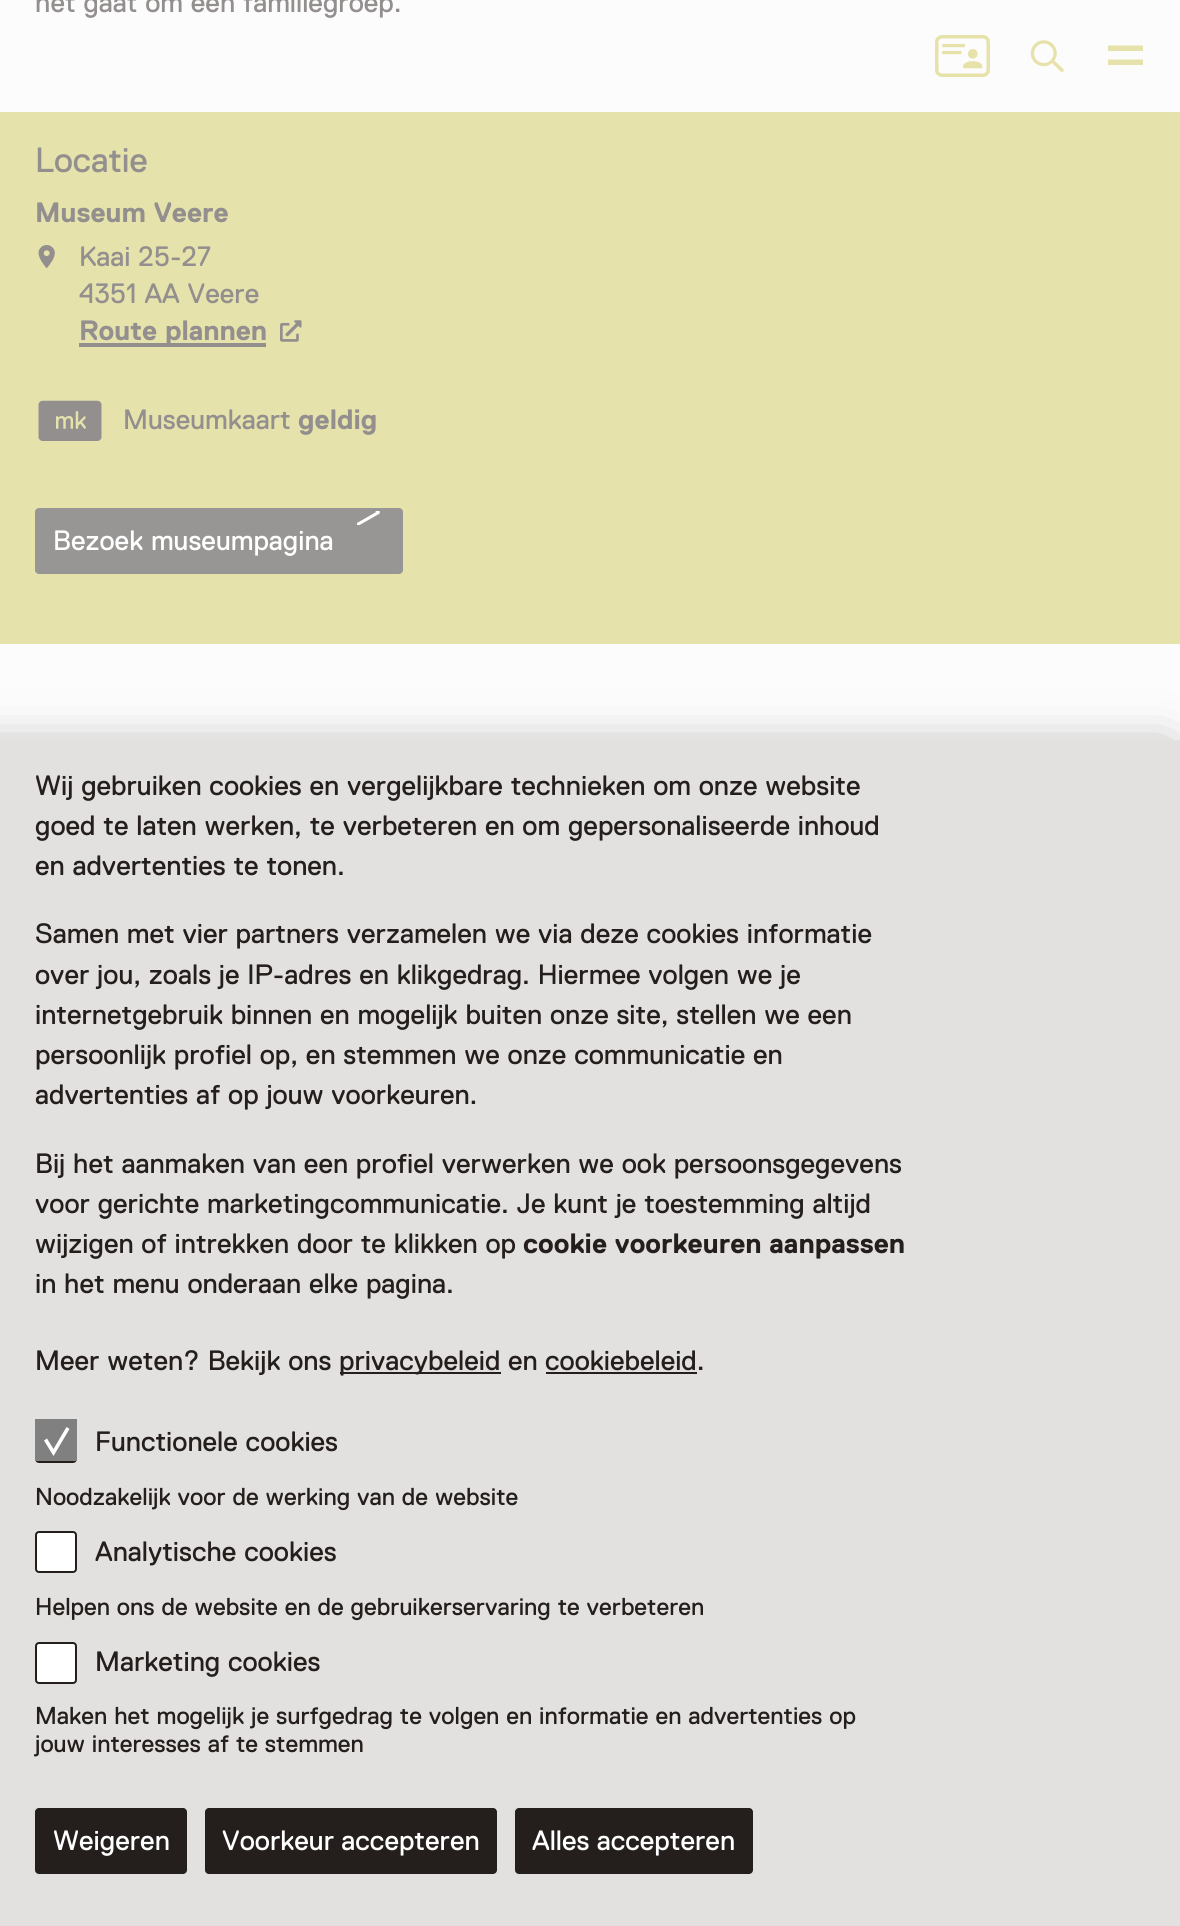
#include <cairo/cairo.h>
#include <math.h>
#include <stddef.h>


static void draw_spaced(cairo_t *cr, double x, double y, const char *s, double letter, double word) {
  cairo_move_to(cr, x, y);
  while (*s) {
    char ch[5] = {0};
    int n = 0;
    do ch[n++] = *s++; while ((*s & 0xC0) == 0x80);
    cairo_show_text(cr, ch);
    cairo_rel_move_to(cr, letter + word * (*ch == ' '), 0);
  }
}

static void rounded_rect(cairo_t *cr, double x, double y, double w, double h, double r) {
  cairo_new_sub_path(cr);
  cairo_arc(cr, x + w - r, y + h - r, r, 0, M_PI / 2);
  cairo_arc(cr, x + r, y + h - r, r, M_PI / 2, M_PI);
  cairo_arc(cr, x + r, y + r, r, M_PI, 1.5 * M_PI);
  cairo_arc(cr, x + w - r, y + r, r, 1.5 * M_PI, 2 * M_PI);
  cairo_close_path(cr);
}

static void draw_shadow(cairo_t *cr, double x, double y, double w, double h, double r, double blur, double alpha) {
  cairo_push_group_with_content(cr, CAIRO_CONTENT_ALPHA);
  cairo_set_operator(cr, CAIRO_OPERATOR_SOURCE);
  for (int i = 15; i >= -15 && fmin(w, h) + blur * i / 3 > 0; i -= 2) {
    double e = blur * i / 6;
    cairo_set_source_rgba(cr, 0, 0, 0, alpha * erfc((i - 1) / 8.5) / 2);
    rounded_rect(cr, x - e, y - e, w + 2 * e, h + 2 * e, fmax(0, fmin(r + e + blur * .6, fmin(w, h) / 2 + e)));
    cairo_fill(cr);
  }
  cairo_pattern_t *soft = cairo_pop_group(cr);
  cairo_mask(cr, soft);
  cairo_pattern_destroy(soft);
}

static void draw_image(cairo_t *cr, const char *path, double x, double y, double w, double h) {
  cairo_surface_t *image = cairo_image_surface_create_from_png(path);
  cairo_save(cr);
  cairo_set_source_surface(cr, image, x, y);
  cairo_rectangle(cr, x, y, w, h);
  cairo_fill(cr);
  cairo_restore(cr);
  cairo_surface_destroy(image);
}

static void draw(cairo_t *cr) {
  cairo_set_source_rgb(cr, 253 / 255.0, 252 / 255.0, 252 / 255.0);
  cairo_paint(cr);
  cairo_set_source_rgb(cr, 230 / 255.0, 226 / 255.0, 171 / 255.0);
  cairo_rectangle(cr, 0, 112, 1180, 532);
  cairo_fill(cr);
  draw_image(cr, "images/1.png", 38, 245, 17, 24);
  draw_image(cr, "images/2.png", 280, 320, 22, 22);
  cairo_set_source_rgb(cr, 146 / 255.0, 143 / 255.0, 142 / 255.0);
  cairo_rectangle(cr, 79, 343, 187, 4);
  cairo_fill(cr);
  draw_image(cr, "images/3.png", 38, 400, 64, 41);
  cairo_set_source_rgb(cr, 152 / 255.0, 150 / 255.0, 148 / 255.0);
  rounded_rect(cr, 35, 508, 368, 66, 4);
  cairo_fill(cr);
  draw_image(cr, "images/4.png", 357, 511, 23, 14);
  draw_image(cr, "images/5.png", 935, 35, 55, 42);
  draw_image(cr, "images/6.png", 1030, 40, 34, 32);
  cairo_set_source_rgb(cr, 230 / 255.0, 226 / 255.0, 171 / 255.0);
  cairo_new_path(cr);
  cairo_move_to(cr, 1143, 59.5);
  cairo_line_to(cr, 1143, 65);
  cairo_line_to(cr, 1108, 65);
  cairo_line_to(cr, 1108, 59.5);
  cairo_close_path(cr);
  cairo_move_to(cr, 1143, 45.5);
  cairo_line_to(cr, 1143, 51);
  cairo_line_to(cr, 1108, 51);
  cairo_line_to(cr, 1108, 45.5);
  cairo_close_path(cr);
  cairo_fill(cr);
  cairo_set_source_rgb(cr, 0, 0, 0);
  draw_shadow(cr, -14, 754, 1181, 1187, 0, 26, 0.4);
  cairo_set_source_rgb(cr, 227 / 255.0, 225 / 255.0, 224 / 255.0);
  cairo_rectangle(cr, 0, 740, 1180, 1186);
  cairo_fill(cr);
  cairo_set_source_rgb(cr, 36 / 255.0, 31 / 255.0, 28 / 255.0);
  cairo_rectangle(cr, 340, 1372, 161, 2);
  cairo_fill(cr);
  cairo_rectangle(cr, 546, 1372, 151, 2);
  cairo_fill(cr);
  rounded_rect(cr, 36, 1422, 40, 40, 3);
  cairo_stroke(cr);
  cairo_set_source_rgb(cr, 128 / 255.0, 128 / 255.0, 128 / 255.0);
  cairo_rectangle(cr, 35, 1419, 42, 42);
  cairo_fill(cr);
  cairo_set_source_rgb(cr, 1, 1, 1);
  cairo_new_path(cr);
  cairo_move_to(cr, 53.5, 1456);
  cairo_line_to(cr, 44, 1440.5);
  cairo_line_to(cr, 47, 1438.5);
  cairo_line_to(cr, 53.5, 1449);
  cairo_line_to(cr, 66.5, 1427);
  cairo_line_to(cr, 69.5, 1429);
  cairo_close_path(cr);
  cairo_fill(cr);
  rounded_rect(cr, 36, 1532, 40, 40, 3);
  cairo_fill_preserve(cr);
  cairo_set_source_rgb(cr, 36 / 255.0, 31 / 255.0, 28 / 255.0);
  cairo_stroke(cr);
  cairo_set_source_rgb(cr, 1, 1, 1);
  rounded_rect(cr, 36, 1643, 40, 40, 3);
  cairo_fill_preserve(cr);
  cairo_set_source_rgb(cr, 36 / 255.0, 31 / 255.0, 28 / 255.0);
  cairo_stroke(cr);
  rounded_rect(cr, 35, 1808, 152, 66, 4);
  cairo_fill(cr);
  rounded_rect(cr, 205, 1808, 292, 66, 4);
  cairo_fill(cr);
  rounded_rect(cr, 515, 1808, 238, 66, 4);
  cairo_fill(cr);
  cairo_select_font_face(cr, "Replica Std", CAIRO_FONT_SLANT_NORMAL, CAIRO_FONT_WEIGHT_NORMAL);
  cairo_set_font_size(cr, 28);
  cairo_set_source_rgb(cr, 146 / 255.0, 143 / 255.0, 142 / 255.0);
  draw_spaced(cr, 35, 12, "het gaat om een familiegroep.", 0, 0.5);
  cairo_set_font_size(cr, 35);
  cairo_move_to(cr, 35, 172);
  cairo_show_text(cr, "Locatie");
  cairo_select_font_face(cr, "Replica Std", CAIRO_FONT_SLANT_NORMAL, CAIRO_FONT_WEIGHT_BOLD);
  cairo_set_font_size(cr, 28);
  draw_spaced(cr, 35, 222, "Museum Veere", 0, 0.5);
  cairo_select_font_face(cr, "Replica Std", CAIRO_FONT_SLANT_NORMAL, CAIRO_FONT_WEIGHT_NORMAL);
  draw_spaced(cr, 79, 266, "Kaai 25-27", 0, 0.5);
  draw_spaced(cr, 79, 303, "4351 AA Veere", 0, 0.5);
  cairo_select_font_face(cr, "Replica Std", CAIRO_FONT_SLANT_NORMAL, CAIRO_FONT_WEIGHT_BOLD);
  draw_spaced(cr, 79, 340, "Route plannen", 0, 0.5);
  cairo_select_font_face(cr, "Replica Std", CAIRO_FONT_SLANT_NORMAL, CAIRO_FONT_WEIGHT_NORMAL);
  cairo_move_to(cr, 123, 429);
  cairo_show_text(cr, "Museumkaart");
  cairo_select_font_face(cr, "Replica Std", CAIRO_FONT_SLANT_NORMAL, CAIRO_FONT_WEIGHT_BOLD);
  cairo_move_to(cr, 298, 429);
  cairo_show_text(cr, "geldig");
  cairo_select_font_face(cr, "Replica Std", CAIRO_FONT_SLANT_NORMAL, CAIRO_FONT_WEIGHT_NORMAL);
  cairo_set_source_rgb(cr, 1, 1, 1);
  draw_spaced(cr, 53, 550, "Bezoek museumpagina", 0, 0.5);
  cairo_set_source_rgb(cr, 36 / 255.0, 31 / 255.0, 28 / 255.0);
  draw_spaced(cr, 35, 795, "Wij gebruiken cookies en vergelijkbare technieken om onze website", 0, 0.5);
  draw_spaced(cr, 35, 835, "goed te laten werken, te verbeteren en om gepersonaliseerde inhoud", 0, 0.5);
  draw_spaced(cr, 35, 875, "en advertenties te tonen.", 0, 0.5);
  draw_spaced(cr, 35, 943, "Samen met vier partners verzamelen we via deze cookies informatie", 0, 0.5);
  draw_spaced(cr, 35, 984, "over jou, zoals je IP-adres en klikgedrag. Hiermee volgen we je", 0, 0.5);
  draw_spaced(cr, 35, 1024, "internetgebruik binnen en mogelijk buiten onze site, stellen we een", 0, 0.5);
  draw_spaced(cr, 35, 1064, "persoonlijk profiel op, en stemmen we onze communicatie en", 0, 0.5);
  draw_spaced(cr, 35, 1104, "advertenties af op jouw voorkeuren.", 0, 0.5);
  draw_spaced(cr, 35, 1173, "Bij het aanmaken van een profiel verwerken we ook persoonsgegevens", 0, 0.5);
  draw_spaced(cr, 35, 1213, "voor gerichte marketingcommunicatie. Je kunt je toestemming altijd", 0, 0.5);
  draw_spaced(cr, 35, 1253, "wijzigen of intrekken door te klikken op", 0, 0.5);
  cairo_select_font_face(cr, "Replica Std", CAIRO_FONT_SLANT_NORMAL, CAIRO_FONT_WEIGHT_BOLD);
  draw_spaced(cr, 523, 1253, "cookie voorkeuren aanpassen", 0, 0.5);
  cairo_select_font_face(cr, "Replica Std", CAIRO_FONT_SLANT_NORMAL, CAIRO_FONT_WEIGHT_NORMAL);
  draw_spaced(cr, 35, 1293, "in het menu onderaan elke pagina.", 0, 0.5);
  draw_spaced(cr, 35, 1370, "Meer weten? Bekijk ons", 0, 0.5);
  cairo_move_to(cr, 339, 1370);
  cairo_show_text(cr, "privacybeleid");
  cairo_move_to(cr, 508, 1370);
  cairo_show_text(cr, "en");
  cairo_move_to(cr, 545, 1370);
  cairo_show_text(cr, "cookiebeleid.");
  draw_spaced(cr, 95, 1451, "Functionele cookies", 0, 0.5);
  cairo_set_font_size(cr, 24.5);
  draw_spaced(cr, 35, 1505, "Noodzakelijk voor de werking van de website", 0, 0.5);
  cairo_set_font_size(cr, 28);
  draw_spaced(cr, 95, 1561, "Analytische cookies", 0, 0.5);
  cairo_set_font_size(cr, 24.5);
  draw_spaced(cr, 35, 1615, "Helpen ons de website en de gebruikerservaring te verbeteren", 0, 0.5);
  cairo_set_font_size(cr, 28);
  draw_spaced(cr, 95, 1671, "Marketing cookies", 0, 0.5);
  cairo_set_font_size(cr, 24.5);
  draw_spaced(cr, 35, 1724, "Maken het mogelijk je surfgedrag te volgen en informatie en advertenties op", 0, 0.5);
  draw_spaced(cr, 35, 1752, "jouw interesses af te stemmen", 0, 0.5);
  cairo_set_font_size(cr, 28);
  cairo_set_source_rgb(cr, 1, 1, 1);
  cairo_move_to(cr, 53, 1850);
  cairo_show_text(cr, "Weigeren");
  cairo_move_to(cr, 222, 1850);
  cairo_show_text(cr, "Voorkeur accepteren");
  cairo_move_to(cr, 532, 1850);
  cairo_show_text(cr, "Alles accepteren");
}

int main(void) {
  cairo_surface_t *surface = cairo_image_surface_create(CAIRO_FORMAT_RGB24, 1180, 1926);
  cairo_t *cr = cairo_create(surface);
  cairo_font_options_t *options = cairo_font_options_create();
  cairo_font_options_set_hint_metrics(options, CAIRO_HINT_METRICS_OFF);
  cairo_font_options_set_hint_style(options, CAIRO_HINT_STYLE_NONE);
  cairo_set_font_options(cr, options);
  cairo_set_miter_limit(cr, 4);
  draw(cr);
  cairo_surface_write_to_png(surface, "out.png");
  cairo_font_options_destroy(options);
  cairo_destroy(cr);
  cairo_surface_destroy(surface);
  return 0;
}
